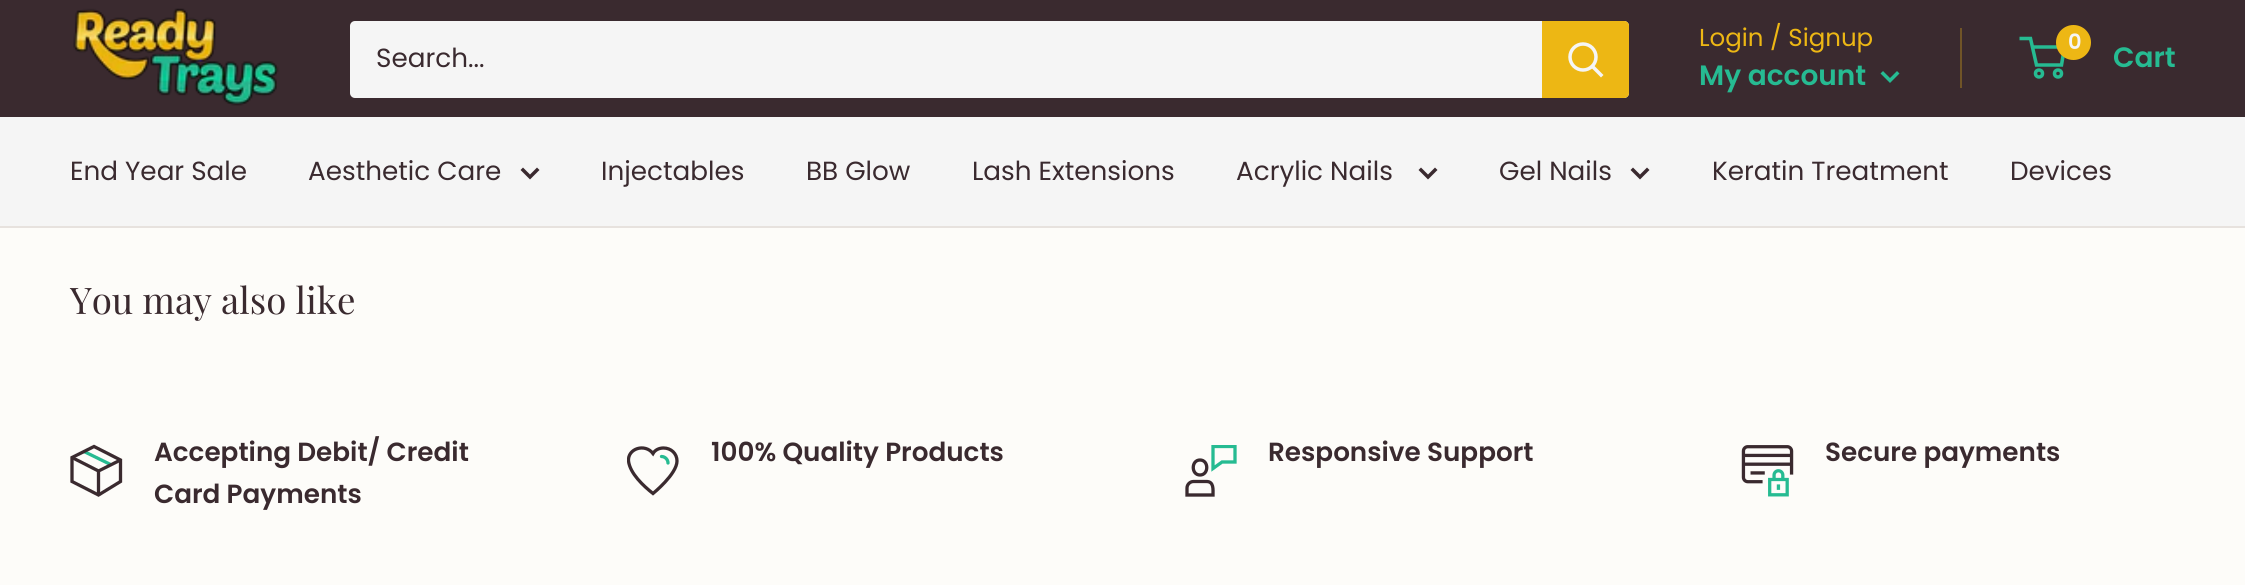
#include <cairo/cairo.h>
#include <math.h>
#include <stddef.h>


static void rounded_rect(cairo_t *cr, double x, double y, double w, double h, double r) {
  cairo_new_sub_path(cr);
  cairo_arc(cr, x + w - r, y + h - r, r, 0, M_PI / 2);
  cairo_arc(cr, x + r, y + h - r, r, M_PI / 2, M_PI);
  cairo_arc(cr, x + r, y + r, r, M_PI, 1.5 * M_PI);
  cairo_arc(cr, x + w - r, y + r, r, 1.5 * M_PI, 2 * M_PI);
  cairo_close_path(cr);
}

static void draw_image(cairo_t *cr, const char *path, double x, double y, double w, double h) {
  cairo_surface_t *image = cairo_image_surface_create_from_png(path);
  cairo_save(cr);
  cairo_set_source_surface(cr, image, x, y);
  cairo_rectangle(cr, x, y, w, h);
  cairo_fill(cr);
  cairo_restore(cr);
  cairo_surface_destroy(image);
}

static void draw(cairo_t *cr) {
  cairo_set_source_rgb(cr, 253 / 255.0, 252 / 255.0, 249 / 255.0);
  cairo_paint(cr);
  cairo_set_source_rgb(cr, 58 / 255.0, 42 / 255.0, 47 / 255.0);
  cairo_rectangle(cr, 0, 0, 2245, 117);
  cairo_fill(cr);
  draw_image(cr, "images/1.png", 73, 8, 206, 98);
  cairo_set_source_rgb(cr, 245 / 255.0, 245 / 255.0, 245 / 255.0);
  rounded_rect(cr, 350, 21, 1279, 77, 5);
  cairo_fill(cr);
  cairo_set_source_rgb(cr, 237 / 255.0, 183 / 255.0, 20 / 255.0);
  cairo_new_path(cr);
  cairo_move_to(cr, 1542, 21);
  cairo_line_to(cr, 1624, 21);
  cairo_curve_to(cr, 1627, 21, 1629, 23, 1629, 26);
  cairo_line_to(cr, 1629, 93);
  cairo_curve_to(cr, 1629, 96, 1627, 98, 1624, 98);
  cairo_line_to(cr, 1542, 98);
  cairo_close_path(cr);
  cairo_fill(cr);
  cairo_new_path(cr);
  cairo_move_to(cr, 1601, 75);
  cairo_line_to(cr, 1592.5, 66.5);
  cairo_set_source_rgb(cr, 245 / 255.0, 245 / 255.0, 245 / 255.0);
  cairo_set_line_width(cr, 3.5);
  cairo_set_line_cap(cr, CAIRO_LINE_CAP_SQUARE);
  cairo_stroke(cr);
  cairo_arc(cr, 1583, 57, 13, 0, 2 * M_PI);
  cairo_set_line_cap(cr, CAIRO_LINE_CAP_BUTT);
  cairo_stroke(cr);
  cairo_set_source_rgb(cr, 112 / 255.0, 84 / 255.0, 39 / 255.0);
  cairo_rectangle(cr, 1960, 28, 2, 60);
  cairo_fill(cr);
  cairo_new_path(cr);
  cairo_move_to(cr, 1897, 73.5);
  cairo_line_to(cr, 1890, 80.5);
  cairo_line_to(cr, 1883, 73.5);
  cairo_set_source_rgb(cr, 38 / 255.0, 187 / 255.0, 146 / 255.0);
  cairo_set_line_cap(cr, CAIRO_LINE_CAP_SQUARE);
  cairo_stroke(cr);
  cairo_arc(cr, 2039, 73.5, 3.5, 0, 2 * M_PI);
  cairo_set_line_cap(cr, CAIRO_LINE_CAP_BUTT);
  cairo_stroke(cr);
  cairo_arc(cr, 2058, 73.5, 3.5, 0, 2 * M_PI);
  cairo_stroke(cr);
  cairo_new_path(cr);
  cairo_move_to(cr, 2032.5, 47);
  cairo_line_to(cr, 2064.5, 47);
  cairo_line_to(cr, 2061.5, 65);
  cairo_line_to(cr, 2036.5, 65);
  cairo_line_to(cr, 2030.5, 38.5);
  cairo_line_to(cr, 2019.5, 38.5);
  cairo_stroke(cr);
  cairo_set_source_rgb(cr, 237 / 255.0, 183 / 255.0, 20 / 255.0);
  cairo_arc(cr, 2073.5, 42.5, 17.5, 0, 2 * M_PI);
  cairo_fill(cr);
  cairo_set_source_rgb(cr, 245 / 255.0, 245 / 255.0, 245 / 255.0);
  cairo_rectangle(cr, 0, 117, 2245, 109);
  cairo_fill(cr);
  cairo_set_source_rgb(cr, 231 / 255.0, 226 / 255.0, 222 / 255.0);
  cairo_rectangle(cr, 0, 226, 2245, 2);
  cairo_fill(cr);
  cairo_new_path(cr);
  cairo_move_to(cr, 537, 170);
  cairo_line_to(cr, 530, 177);
  cairo_line_to(cr, 523, 170);
  cairo_set_source_rgb(cr, 58 / 255.0, 42 / 255.0, 47 / 255.0);
  cairo_set_line_cap(cr, CAIRO_LINE_CAP_SQUARE);
  cairo_stroke(cr);
  cairo_new_path(cr);
  cairo_move_to(cr, 1435, 170);
  cairo_line_to(cr, 1428, 177);
  cairo_line_to(cr, 1421, 170);
  cairo_stroke(cr);
  cairo_new_path(cr);
  cairo_move_to(cr, 1647, 170);
  cairo_line_to(cr, 1640, 177);
  cairo_line_to(cr, 1633, 170);
  cairo_stroke(cr);
  cairo_new_path(cr);
  cairo_move_to(cr, 84, 451.5);
  cairo_line_to(cr, 110.5, 464.5);
  cairo_set_source_rgb(cr, 38 / 255.0, 187 / 255.0, 146 / 255.0);
  cairo_set_line_width(cr, 3.3);
  cairo_set_line_cap(cr, CAIRO_LINE_CAP_BUTT);
  cairo_stroke(cr);
  cairo_new_path(cr);
  cairo_move_to(cr, 120.5, 460);
  cairo_line_to(cr, 98.5, 471);
  cairo_line_to(cr, 72, 457.5);
  cairo_move_to(cr, 98.5, 471);
  cairo_line_to(cr, 98.5, 495);
  cairo_set_source_rgb(cr, 58 / 255.0, 42 / 255.0, 47 / 255.0);
  cairo_stroke(cr);
  cairo_new_path(cr);
  cairo_move_to(cr, 120.5, 460);
  cairo_line_to(cr, 120.5, 481.5);
  cairo_line_to(cr, 98.5, 495);
  cairo_line_to(cr, 72, 481.5);
  cairo_line_to(cr, 72, 457.5);
  cairo_line_to(cr, 94, 446.5);
  cairo_close_path(cr);
  cairo_set_line_cap(cr, CAIRO_LINE_CAP_SQUARE);
  cairo_stroke(cr);
  cairo_save(cr);
  cairo_rectangle(cr, 627, 445, 52, 52);
  cairo_clip(cr);
  cairo_new_path(cr);
  cairo_move_to(cr, 663.5, 448);
  cairo_curve_to(cr, 659, 448, 655, 450, 653, 453.5);
  cairo_curve_to(cr, 645, 443, 627.5, 448.5, 628.5, 461);
  cairo_curve_to(cr, 630, 473.5, 643.5, 486, 653, 493.5);
  cairo_curve_to(cr, 653, 493.5, 677, 474, 677, 461);
  cairo_curve_to(cr, 677, 453.5, 671, 448, 663.5, 448);
  cairo_close_path(cr);
  cairo_stroke(cr);
  cairo_restore(cr);
  cairo_new_path(cr);
  cairo_move_to(cr, 661.5, 456.5);
  cairo_curve_to(cr, 665, 456.5, 668, 459.5, 668, 463);
  cairo_set_source_rgb(cr, 38 / 255.0, 187 / 255.0, 146 / 255.0);
  cairo_set_line_cap(cr, CAIRO_LINE_CAP_ROUND);
  cairo_stroke(cr);
  cairo_new_path(cr);
  cairo_move_to(cr, 1206.5, 481.5);
  cairo_line_to(cr, 1193.5, 481.5);
  cairo_curve_to(cr, 1190, 481.5, 1187, 484.5, 1187, 488);
  cairo_line_to(cr, 1187, 495);
  cairo_line_to(cr, 1213, 495);
  cairo_curve_to(cr, 1213, 489.5, 1214, 481.5, 1206.5, 481.5);
  cairo_close_path(cr);
  cairo_move_to(cr, 1200, 475);
  cairo_curve_to(cr, 1191, 475, 1191, 460, 1200, 460);
  cairo_curve_to(cr, 1209, 460, 1209, 475, 1200, 475);
  cairo_close_path(cr);
  cairo_set_source_rgb(cr, 58 / 255.0, 42 / 255.0, 47 / 255.0);
  cairo_set_line_cap(cr, CAIRO_LINE_CAP_SQUARE);
  cairo_stroke(cr);
  cairo_save(cr);
  cairo_rectangle(cr, 1185, 445, 52, 52);
  cairo_clip(cr);
  cairo_new_path(cr);
  cairo_move_to(cr, 1213, 446.5);
  cairo_line_to(cr, 1213, 468.5);
  cairo_line_to(cr, 1222, 462);
  cairo_line_to(cr, 1235, 462);
  cairo_line_to(cr, 1235, 446.5);
  cairo_close_path(cr);
  cairo_set_source_rgb(cr, 38 / 255.0, 187 / 255.0, 146 / 255.0);
  cairo_stroke(cr);
  cairo_restore(cr);
  draw_image(cr, "images/2.png", 1741, 445, 53, 52);
  cairo_select_font_face(cr, "Poppins", CAIRO_FONT_SLANT_NORMAL, CAIRO_FONT_WEIGHT_NORMAL);
  cairo_set_font_size(cr, 26.25);
  cairo_move_to(cr, 376, 67);
  cairo_show_text(cr, "Search...");
  cairo_set_font_size(cr, 24.5);
  cairo_set_source_rgb(cr, 237 / 255.0, 183 / 255.0, 20 / 255.0);
  cairo_move_to(cr, 1699, 46);
  cairo_show_text(cr, "Login / Signup");
  cairo_select_font_face(cr, "Poppins SemiBold", CAIRO_FONT_SLANT_NORMAL, CAIRO_FONT_WEIGHT_NORMAL);
  cairo_set_font_size(cr, 28);
  cairo_set_source_rgb(cr, 38 / 255.0, 187 / 255.0, 146 / 255.0);
  cairo_move_to(cr, 1699, 85);
  cairo_show_text(cr, "My account");
  cairo_set_font_size(cr, 21);
  cairo_set_source_rgb(cr, 245 / 255.0, 245 / 255.0, 245 / 255.0);
  cairo_move_to(cr, 2068, 49);
  cairo_show_text(cr, "0");
  cairo_set_font_size(cr, 28);
  cairo_set_source_rgb(cr, 38 / 255.0, 187 / 255.0, 146 / 255.0);
  cairo_move_to(cr, 2113, 67);
  cairo_show_text(cr, "Cart");
  cairo_select_font_face(cr, "Poppins", CAIRO_FONT_SLANT_NORMAL, CAIRO_FONT_WEIGHT_NORMAL);
  cairo_set_font_size(cr, 26.25);
  cairo_set_source_rgb(cr, 58 / 255.0, 42 / 255.0, 47 / 255.0);
  cairo_move_to(cr, 70, 180);
  cairo_show_text(cr, "End Year Sale");
  cairo_move_to(cr, 308, 180);
  cairo_show_text(cr, "Aesthetic Care");
  cairo_move_to(cr, 601, 180);
  cairo_show_text(cr, "Injectables");
  cairo_move_to(cr, 806, 180);
  cairo_show_text(cr, "BB Glow");
  cairo_move_to(cr, 972, 180);
  cairo_show_text(cr, "Lash Extensions");
  cairo_move_to(cr, 1236, 180);
  cairo_show_text(cr, "Acrylic Nails");
  cairo_move_to(cr, 1499, 180);
  cairo_show_text(cr, "Gel Nails");
  cairo_move_to(cr, 1712, 180);
  cairo_show_text(cr, "Keratin Treatment");
  cairo_move_to(cr, 2010, 180);
  cairo_show_text(cr, "Devices");
  cairo_select_font_face(cr, "Playfair Display", CAIRO_FONT_SLANT_NORMAL, CAIRO_FONT_WEIGHT_NORMAL);
  cairo_set_font_size(cr, 36.75);
  cairo_move_to(cr, 70, 314);
  cairo_show_text(cr, "You may also like");
  cairo_select_font_face(cr, "Poppins SemiBold", CAIRO_FONT_SLANT_NORMAL, CAIRO_FONT_WEIGHT_NORMAL);
  cairo_set_font_size(cr, 26.25);
  cairo_move_to(cr, 154, 461);
  cairo_show_text(cr, "Accepting Debit/ Credit");
  cairo_move_to(cr, 154, 503);
  cairo_show_text(cr, "Card Payments");
  cairo_move_to(cr, 711, 461);
  cairo_show_text(cr, "100% Quality Products");
  cairo_move_to(cr, 1268, 461);
  cairo_show_text(cr, "Responsive Support");
  cairo_move_to(cr, 1825, 461);
  cairo_show_text(cr, "Secure payments");
}

int main(void) {
  cairo_surface_t *surface = cairo_image_surface_create(CAIRO_FORMAT_RGB24, 2245, 585);
  cairo_t *cr = cairo_create(surface);
  cairo_font_options_t *options = cairo_font_options_create();
  cairo_font_options_set_hint_metrics(options, CAIRO_HINT_METRICS_OFF);
  cairo_font_options_set_hint_style(options, CAIRO_HINT_STYLE_NONE);
  cairo_set_font_options(cr, options);
  cairo_set_miter_limit(cr, 4);
  draw(cr);
  cairo_surface_write_to_png(surface, "out.png");
  cairo_font_options_destroy(options);
  cairo_destroy(cr);
  cairo_surface_destroy(surface);
  return 0;
}
